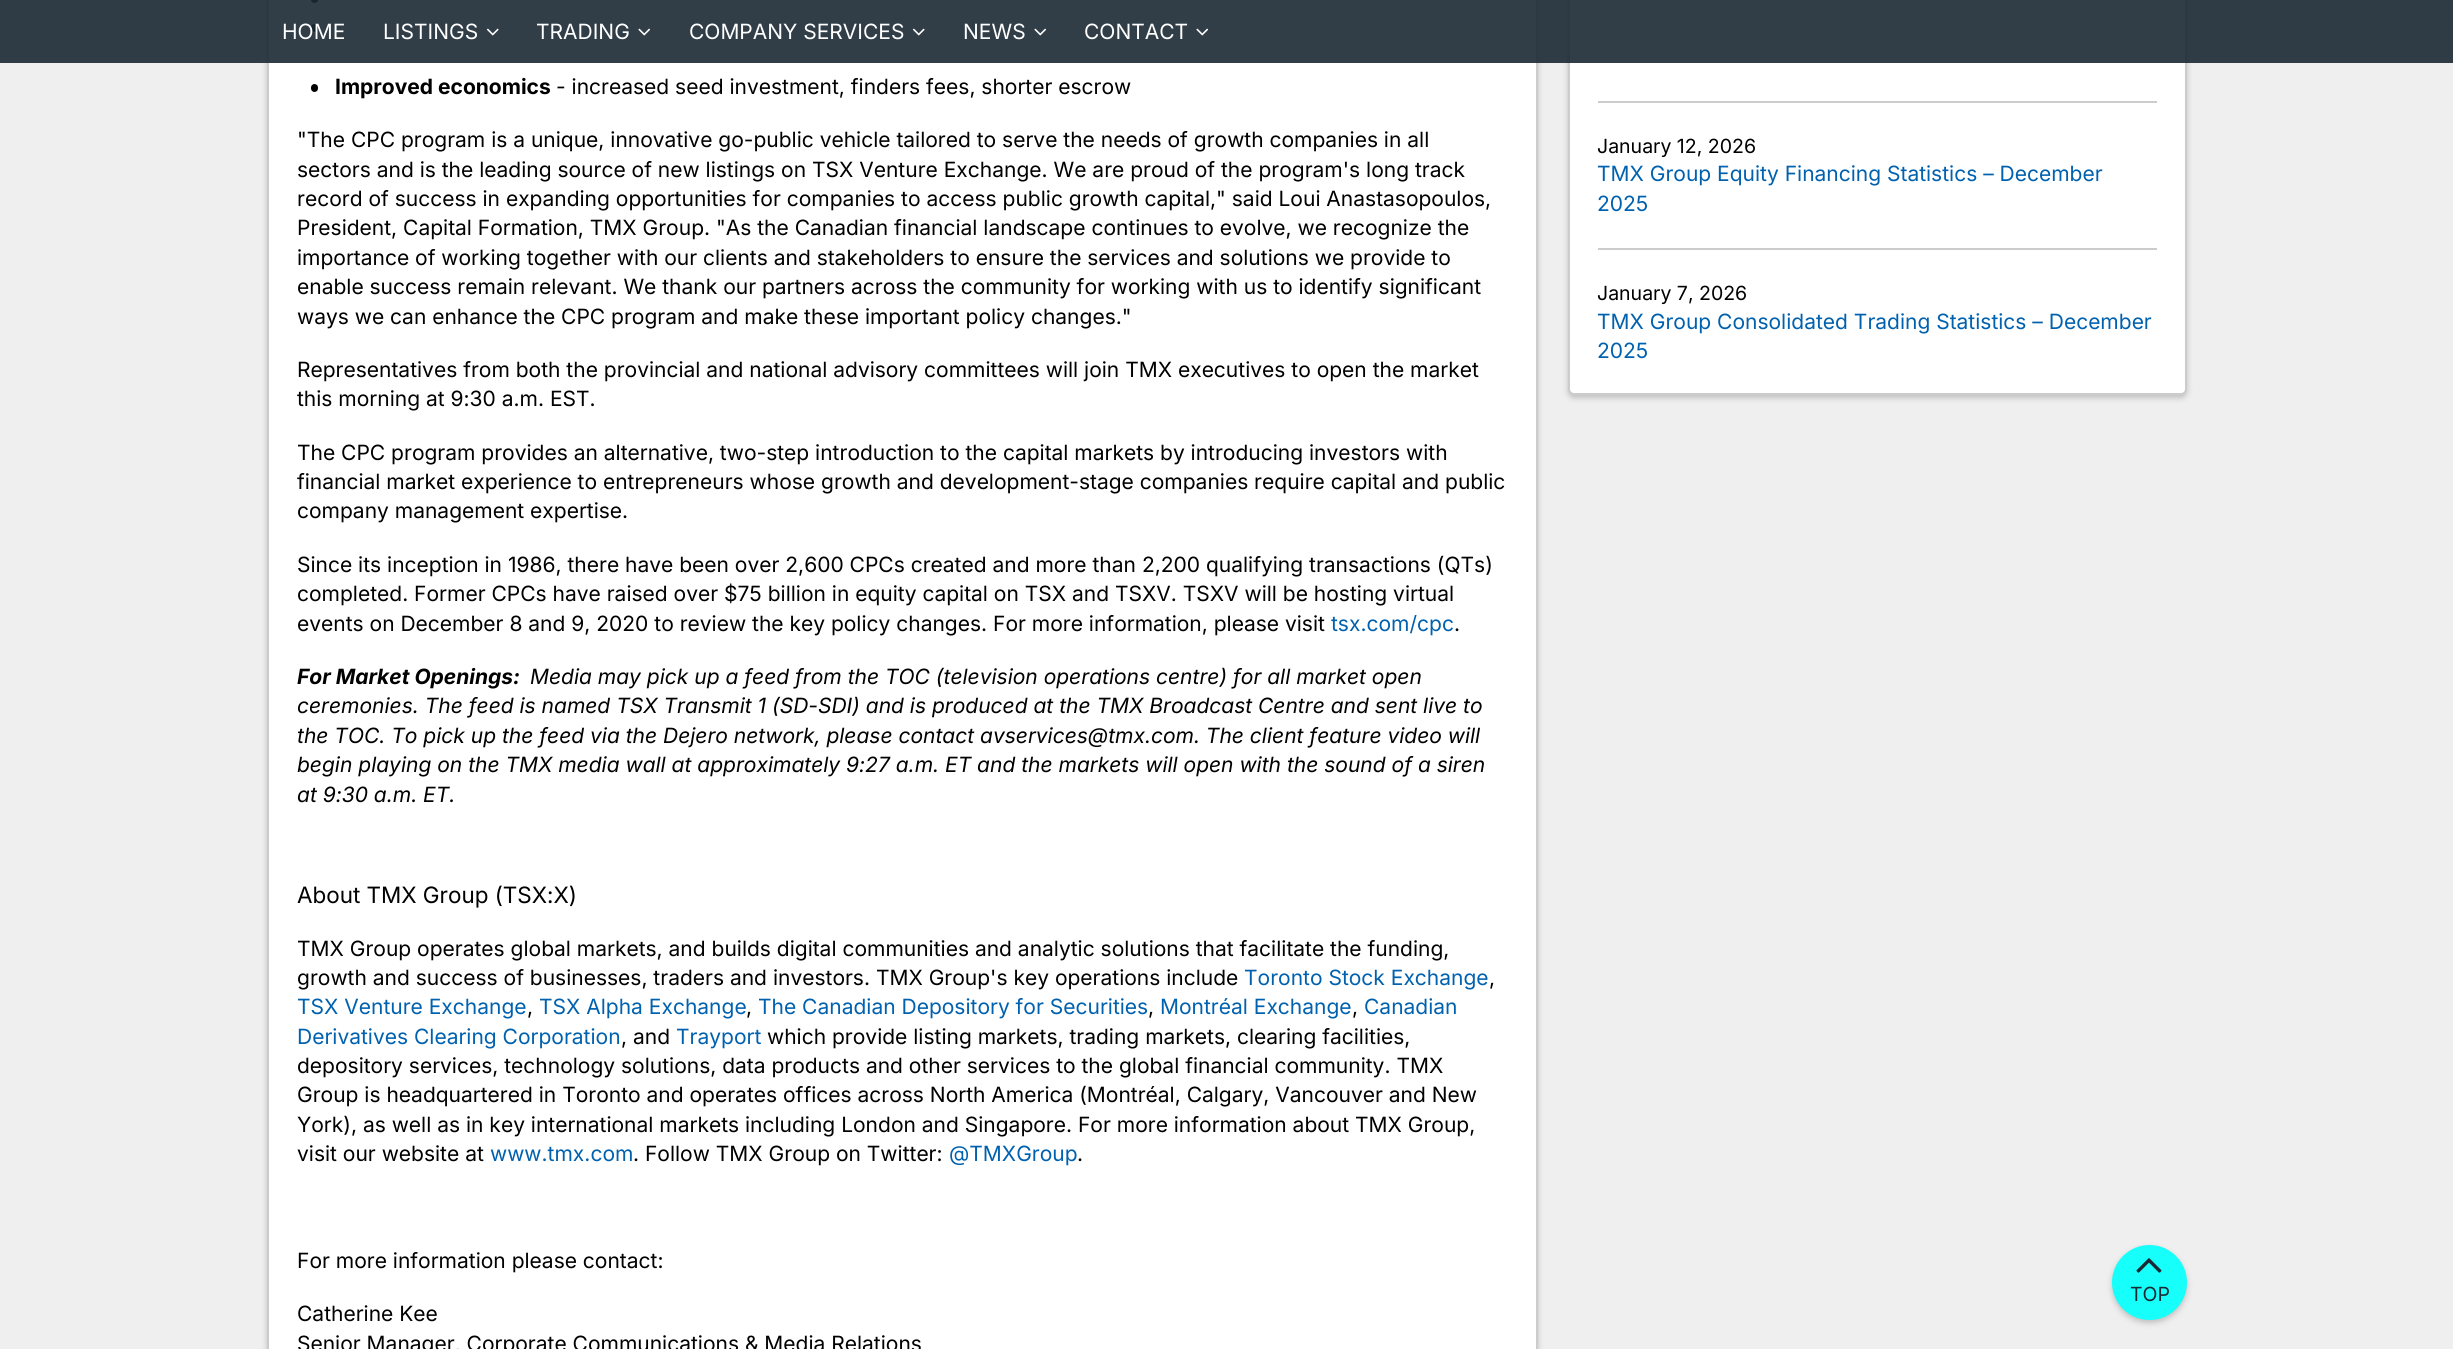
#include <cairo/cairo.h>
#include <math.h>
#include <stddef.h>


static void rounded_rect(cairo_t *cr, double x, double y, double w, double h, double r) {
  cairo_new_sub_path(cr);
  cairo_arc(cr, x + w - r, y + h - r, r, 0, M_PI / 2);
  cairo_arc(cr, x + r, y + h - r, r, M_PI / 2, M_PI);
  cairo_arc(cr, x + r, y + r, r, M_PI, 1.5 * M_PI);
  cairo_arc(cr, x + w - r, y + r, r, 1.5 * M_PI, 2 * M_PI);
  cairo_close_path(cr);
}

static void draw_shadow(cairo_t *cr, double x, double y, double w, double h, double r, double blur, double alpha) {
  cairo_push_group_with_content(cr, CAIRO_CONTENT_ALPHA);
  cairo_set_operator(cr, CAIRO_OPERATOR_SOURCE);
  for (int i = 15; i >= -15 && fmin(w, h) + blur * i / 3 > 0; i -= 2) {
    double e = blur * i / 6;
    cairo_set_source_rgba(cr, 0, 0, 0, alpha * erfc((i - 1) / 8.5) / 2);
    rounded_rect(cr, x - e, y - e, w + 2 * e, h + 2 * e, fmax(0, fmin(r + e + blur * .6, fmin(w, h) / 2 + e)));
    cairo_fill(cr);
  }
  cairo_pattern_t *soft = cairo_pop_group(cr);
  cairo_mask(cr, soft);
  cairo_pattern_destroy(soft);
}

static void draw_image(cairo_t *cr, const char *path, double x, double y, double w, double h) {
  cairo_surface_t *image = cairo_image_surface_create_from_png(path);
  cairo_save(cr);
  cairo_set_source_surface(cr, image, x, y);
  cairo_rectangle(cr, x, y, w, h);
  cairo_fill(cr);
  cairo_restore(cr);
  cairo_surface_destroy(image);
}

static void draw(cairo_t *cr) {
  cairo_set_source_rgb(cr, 239 / 255.0, 239 / 255.0, 239 / 255.0);
  cairo_paint(cr);
  cairo_set_source_rgb(cr, 0, 0, 0);
  draw_shadow(cr, 267, -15, 1271, 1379, 6, 3, 0.2);
  cairo_set_source_rgb(cr, 1, 1, 1);
  cairo_rectangle(cr, 268, -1, 1269, 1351);
  cairo_fill_preserve(cr);
  cairo_set_source_rgb(cr, 204 / 255.0, 204 / 255.0, 204 / 255.0);
  cairo_stroke(cr);
  cairo_set_source_rgb(cr, 0, 0, 0);
  cairo_arc(cr, 314.5, -0.5, 3.5, 0, 2 * M_PI);
  cairo_fill(cr);
  rounded_rect(cr, 311, 24, 7, 8, 3.5);
  cairo_fill(cr);
  cairo_set_source_rgb(cr, 0, 0, 0);
  draw_shadow(cr, 1568, -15, 619, 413, 6, 3, 0.2);
  cairo_set_source_rgb(cr, 1, 1, 1);
  rounded_rect(cr, 1569, -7, 617, 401, 5);
  cairo_fill_preserve(cr);
  cairo_set_source_rgb(cr, 204 / 255.0, 204 / 255.0, 204 / 255.0);
  cairo_stroke(cr);
  cairo_set_source_rgba(cr, 27 / 255.0, 41 / 255.0, 53 / 255.0, 0.9);
  cairo_rectangle(cr, 0, 0, 2453, 63);
  cairo_fill(cr);
  draw_image(cr, "images/1.png", 486, 28, 13, 8);
  draw_image(cr, "images/2.png", 638, 28, 13, 8);
  draw_image(cr, "images/3.png", 912, 28, 13, 8);
  draw_image(cr, "images/4.png", 1034, 28, 13, 8);
  draw_image(cr, "images/5.png", 1196, 28, 13, 8);
  cairo_set_source_rgb(cr, 0, 0, 0);
  rounded_rect(cr, 311, 84, 7, 8, 3.5);
  cairo_fill(cr);
  cairo_set_source_rgb(cr, 204 / 255.0, 204 / 255.0, 204 / 255.0);
  cairo_rectangle(cr, 1598, 101, 559, 2);
  cairo_fill(cr);
  cairo_rectangle(cr, 1598, 248, 559, 2);
  cairo_fill(cr);
  cairo_set_source_rgb(cr, 0, 0, 0);
  draw_shadow(cr, 2112, 1248, 75, 75, 37.5, 3, 0.2);
  cairo_set_source_rgb(cr, 22 / 255.0, 1, 251 / 255.0);
  cairo_arc(cr, 2149.5, 1282.5, 37.5, 0, 2 * M_PI);
  cairo_fill(cr);
  draw_image(cr, "images/6.png", 2136, 1258, 26, 15);
  cairo_select_font_face(cr, "Inter", CAIRO_FONT_SLANT_NORMAL, CAIRO_FONT_WEIGHT_NORMAL);
  cairo_set_font_size(cr, 21);
  cairo_set_source_rgb(cr, 1, 1, 1);
  cairo_move_to(cr, 282, 39);
  cairo_show_text(cr, "HOME");
  cairo_move_to(cr, 383, 39);
  cairo_show_text(cr, "LISTINGS");
  cairo_move_to(cr, 536, 39);
  cairo_show_text(cr, "TRADING");
  cairo_move_to(cr, 689, 39);
  cairo_show_text(cr, "COMPANY SERVICES");
  cairo_move_to(cr, 963, 39);
  cairo_show_text(cr, "NEWS");
  cairo_move_to(cr, 1084, 39);
  cairo_show_text(cr, "CONTACT");
  cairo_select_font_face(cr, "Inter", CAIRO_FONT_SLANT_NORMAL, CAIRO_FONT_WEIGHT_BOLD);
  cairo_set_source_rgb(cr, 0, 0, 0);
  cairo_move_to(cr, 335, 94);
  cairo_show_text(cr, "Improved economics");
  cairo_select_font_face(cr, "Inter", CAIRO_FONT_SLANT_NORMAL, CAIRO_FONT_WEIGHT_NORMAL);
  cairo_move_to(cr, 556, 94);
  cairo_show_text(cr, "- increased seed investment, finders fees, shorter escrow");
  cairo_move_to(cr, 297, 147);
  cairo_show_text(cr, "\"The CPC program is a unique, innovative go-public vehicle tailored to serve the needs of growth companies in all");
  cairo_move_to(cr, 297, 177);
  cairo_show_text(cr, "sectors and is the leading source of new listings on TSX Venture Exchange. We are proud of the program's long track");
  cairo_move_to(cr, 297, 206);
  cairo_show_text(cr, "record of success in expanding opportunities for companies to access public growth capital,\" said Loui Anastasopoulos,");
  cairo_move_to(cr, 297, 235);
  cairo_show_text(cr, "President, Capital Formation, TMX Group. \"As the Canadian financial landscape continues to evolve, we recognize the");
  cairo_move_to(cr, 297, 265);
  cairo_show_text(cr, "importance of working together with our clients and stakeholders to ensure the services and solutions we provide to");
  cairo_move_to(cr, 297, 294);
  cairo_show_text(cr, "enable success remain relevant. We thank our partners across the community for working with us to identify significant");
  cairo_move_to(cr, 297, 324);
  cairo_show_text(cr, "ways we can enhance the CPC program and make these important policy changes.\"");
  cairo_move_to(cr, 297, 377);
  cairo_show_text(cr, "Representatives from both the provincial and national advisory committees will join TMX executives to open the market");
  cairo_move_to(cr, 297, 406);
  cairo_show_text(cr, "this morning at 9:30 a.m. EST.");
  cairo_move_to(cr, 297, 460);
  cairo_show_text(cr, "The CPC program provides an alternative, two-step introduction to the capital markets by introducing investors with");
  cairo_move_to(cr, 297, 489);
  cairo_show_text(cr, "financial market experience to entrepreneurs whose growth and development-stage companies require capital and public");
  cairo_move_to(cr, 297, 518);
  cairo_show_text(cr, "company management expertise.");
  cairo_move_to(cr, 297, 572);
  cairo_show_text(cr, "Since its inception in 1986, there have been over 2,600 CPCs created and more than 2,200 qualifying transactions (QTs)");
  cairo_move_to(cr, 297, 601);
  cairo_show_text(cr, "completed. Former CPCs have raised over $75 billion in equity capital on TSX and TSXV. TSXV will be hosting virtual");
  cairo_move_to(cr, 297, 631);
  cairo_show_text(cr, "events on December 8 and 9, 2020 to review the key policy changes. For more information, please visit");
  cairo_set_source_rgb(cr, 0, 97 / 255.0, 175 / 255.0);
  cairo_move_to(cr, 1331, 631);
  cairo_show_text(cr, "tsx.com/cpc");
  cairo_set_source_rgb(cr, 0, 0, 0);
  cairo_move_to(cr, 1454, 631);
  cairo_show_text(cr, ".");
  cairo_select_font_face(cr, "Inter", CAIRO_FONT_SLANT_ITALIC, CAIRO_FONT_WEIGHT_BOLD);
  cairo_move_to(cr, 297, 684);
  cairo_show_text(cr, "For Market Openings:");
  cairo_select_font_face(cr, "Inter", CAIRO_FONT_SLANT_ITALIC, CAIRO_FONT_WEIGHT_NORMAL);
  cairo_move_to(cr, 530, 684);
  cairo_show_text(cr, "Media may pick up a feed from the TOC (television operations centre) for all market open");
  cairo_move_to(cr, 297, 713);
  cairo_show_text(cr, "ceremonies. The feed is named TSX Transmit 1 (SD-SDI) and is produced at the TMX Broadcast Centre and sent live to");
  cairo_move_to(cr, 297, 743);
  cairo_show_text(cr, "the TOC. To pick up the feed via the Dejero network, please contact avservices@tmx.com. The client feature video will");
  cairo_move_to(cr, 297, 772);
  cairo_show_text(cr, "begin playing on the TMX media wall at approximately 9:27 a.m. ET and the markets will open with the sound of a siren");
  cairo_move_to(cr, 297, 802);
  cairo_show_text(cr, "at 9:30 a.m. ET.");
  cairo_select_font_face(cr, "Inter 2", CAIRO_FONT_SLANT_NORMAL, CAIRO_FONT_WEIGHT_NORMAL);
  cairo_set_font_size(cr, 22.5);
  cairo_move_to(cr, 297, 903);
  cairo_show_text(cr, "About TMX Group (TSX:X)");
  cairo_select_font_face(cr, "Inter", CAIRO_FONT_SLANT_NORMAL, CAIRO_FONT_WEIGHT_NORMAL);
  cairo_set_font_size(cr, 21);
  cairo_move_to(cr, 297, 956);
  cairo_show_text(cr, "TMX Group operates global markets, and builds digital communities and analytic solutions that facilitate the funding,");
  cairo_move_to(cr, 297, 985);
  cairo_show_text(cr, "growth and success of businesses, traders and investors. TMX Group's key operations include");
  cairo_set_source_rgb(cr, 0, 97 / 255.0, 175 / 255.0);
  cairo_move_to(cr, 1244, 985);
  cairo_show_text(cr, "Toronto Stock Exchange");
  cairo_set_source_rgb(cr, 0, 0, 0);
  cairo_move_to(cr, 1489, 985);
  cairo_show_text(cr, ",");
  cairo_set_source_rgb(cr, 0, 97 / 255.0, 175 / 255.0);
  cairo_move_to(cr, 297, 1014);
  cairo_show_text(cr, "TSX Venture Exchange");
  cairo_set_source_rgb(cr, 0, 0, 0);
  cairo_move_to(cr, 527, 1014);
  cairo_show_text(cr, ",");
  cairo_set_source_rgb(cr, 0, 97 / 255.0, 175 / 255.0);
  cairo_move_to(cr, 539, 1014);
  cairo_show_text(cr, "TSX Alpha Exchange");
  cairo_set_source_rgb(cr, 0, 0, 0);
  cairo_move_to(cr, 746, 1014);
  cairo_show_text(cr, ",");
  cairo_set_source_rgb(cr, 0, 97 / 255.0, 175 / 255.0);
  cairo_move_to(cr, 758, 1014);
  cairo_show_text(cr, "The Canadian Depository for Securities");
  cairo_set_source_rgb(cr, 0, 0, 0);
  cairo_move_to(cr, 1148, 1014);
  cairo_show_text(cr, ",");
  cairo_set_source_rgb(cr, 0, 97 / 255.0, 175 / 255.0);
  cairo_move_to(cr, 1160, 1014);
  cairo_show_text(cr, "Montréal Exchange");
  cairo_set_source_rgb(cr, 0, 0, 0);
  cairo_move_to(cr, 1352, 1014);
  cairo_show_text(cr, ",");
  cairo_set_source_rgb(cr, 0, 97 / 255.0, 175 / 255.0);
  cairo_move_to(cr, 1364, 1014);
  cairo_show_text(cr, "Canadian");
  cairo_move_to(cr, 297, 1044);
  cairo_show_text(cr, "Derivatives Clearing Corporation");
  cairo_set_source_rgb(cr, 0, 0, 0);
  cairo_move_to(cr, 621, 1044);
  cairo_show_text(cr, ", and");
  cairo_set_source_rgb(cr, 0, 97 / 255.0, 175 / 255.0);
  cairo_move_to(cr, 676, 1044);
  cairo_show_text(cr, "Trayport");
  cairo_set_source_rgb(cr, 0, 0, 0);
  cairo_move_to(cr, 767, 1044);
  cairo_show_text(cr, "which provide listing markets, trading markets, clearing facilities,");
  cairo_move_to(cr, 297, 1073);
  cairo_show_text(cr, "depository services, technology solutions, data products and other services to the global financial community. TMX");
  cairo_move_to(cr, 297, 1102);
  cairo_show_text(cr, "Group is headquartered in Toronto and operates offices across North America (Montréal, Calgary, Vancouver and New");
  cairo_move_to(cr, 297, 1132);
  cairo_show_text(cr, "York), as well as in key international markets including London and Singapore. For more information about TMX Group,");
  cairo_move_to(cr, 297, 1161);
  cairo_show_text(cr, "visit our website at");
  cairo_set_source_rgb(cr, 0, 97 / 255.0, 175 / 255.0);
  cairo_move_to(cr, 490, 1161);
  cairo_show_text(cr, "www.tmx.com");
  cairo_set_source_rgb(cr, 0, 0, 0);
  cairo_move_to(cr, 633, 1161);
  cairo_show_text(cr, ". Follow TMX Group on Twitter:");
  cairo_set_source_rgb(cr, 0, 97 / 255.0, 175 / 255.0);
  cairo_move_to(cr, 949, 1161);
  cairo_show_text(cr, "@TMXGroup");
  cairo_set_source_rgb(cr, 0, 0, 0);
  cairo_move_to(cr, 1077, 1161);
  cairo_show_text(cr, ".");
  cairo_move_to(cr, 297, 1268);
  cairo_show_text(cr, "For more information please contact:");
  cairo_move_to(cr, 297, 1321);
  cairo_show_text(cr, "Catherine Kee");
  cairo_move_to(cr, 297, 1351);
  cairo_show_text(cr, "Senior Manager, Corporate Communications & Media Relations");
  cairo_set_font_size(cr, 19.5);
  cairo_move_to(cr, 1597, 153);
  cairo_show_text(cr, "January 12, 2026");
  cairo_set_font_size(cr, 21);
  cairo_set_source_rgb(cr, 0, 97 / 255.0, 175 / 255.0);
  cairo_move_to(cr, 1597, 181);
  cairo_show_text(cr, "TMX Group Equity Financing Statistics – December");
  cairo_move_to(cr, 1597, 211);
  cairo_show_text(cr, "2025");
  cairo_set_font_size(cr, 19.5);
  cairo_set_source_rgb(cr, 0, 0, 0);
  cairo_move_to(cr, 1597, 300);
  cairo_show_text(cr, "January 7, 2026");
  cairo_set_font_size(cr, 21);
  cairo_set_source_rgb(cr, 0, 97 / 255.0, 175 / 255.0);
  cairo_move_to(cr, 1597, 329);
  cairo_show_text(cr, "TMX Group Consolidated Trading Statistics – December");
  cairo_move_to(cr, 1597, 358);
  cairo_show_text(cr, "2025");
  cairo_set_font_size(cr, 19.5);
  cairo_set_source_rgb(cr, 27 / 255.0, 41 / 255.0, 53 / 255.0);
  cairo_move_to(cr, 2130, 1301);
  cairo_show_text(cr, "TOP");
}

int main(void) {
  cairo_surface_t *surface = cairo_image_surface_create(CAIRO_FORMAT_RGB24, 2453, 1349);
  cairo_t *cr = cairo_create(surface);
  cairo_font_options_t *options = cairo_font_options_create();
  cairo_font_options_set_hint_metrics(options, CAIRO_HINT_METRICS_OFF);
  cairo_font_options_set_hint_style(options, CAIRO_HINT_STYLE_NONE);
  cairo_set_font_options(cr, options);
  cairo_set_miter_limit(cr, 4);
  draw(cr);
  cairo_surface_write_to_png(surface, "out.png");
  cairo_font_options_destroy(options);
  cairo_destroy(cr);
  cairo_surface_destroy(surface);
  return 0;
}
